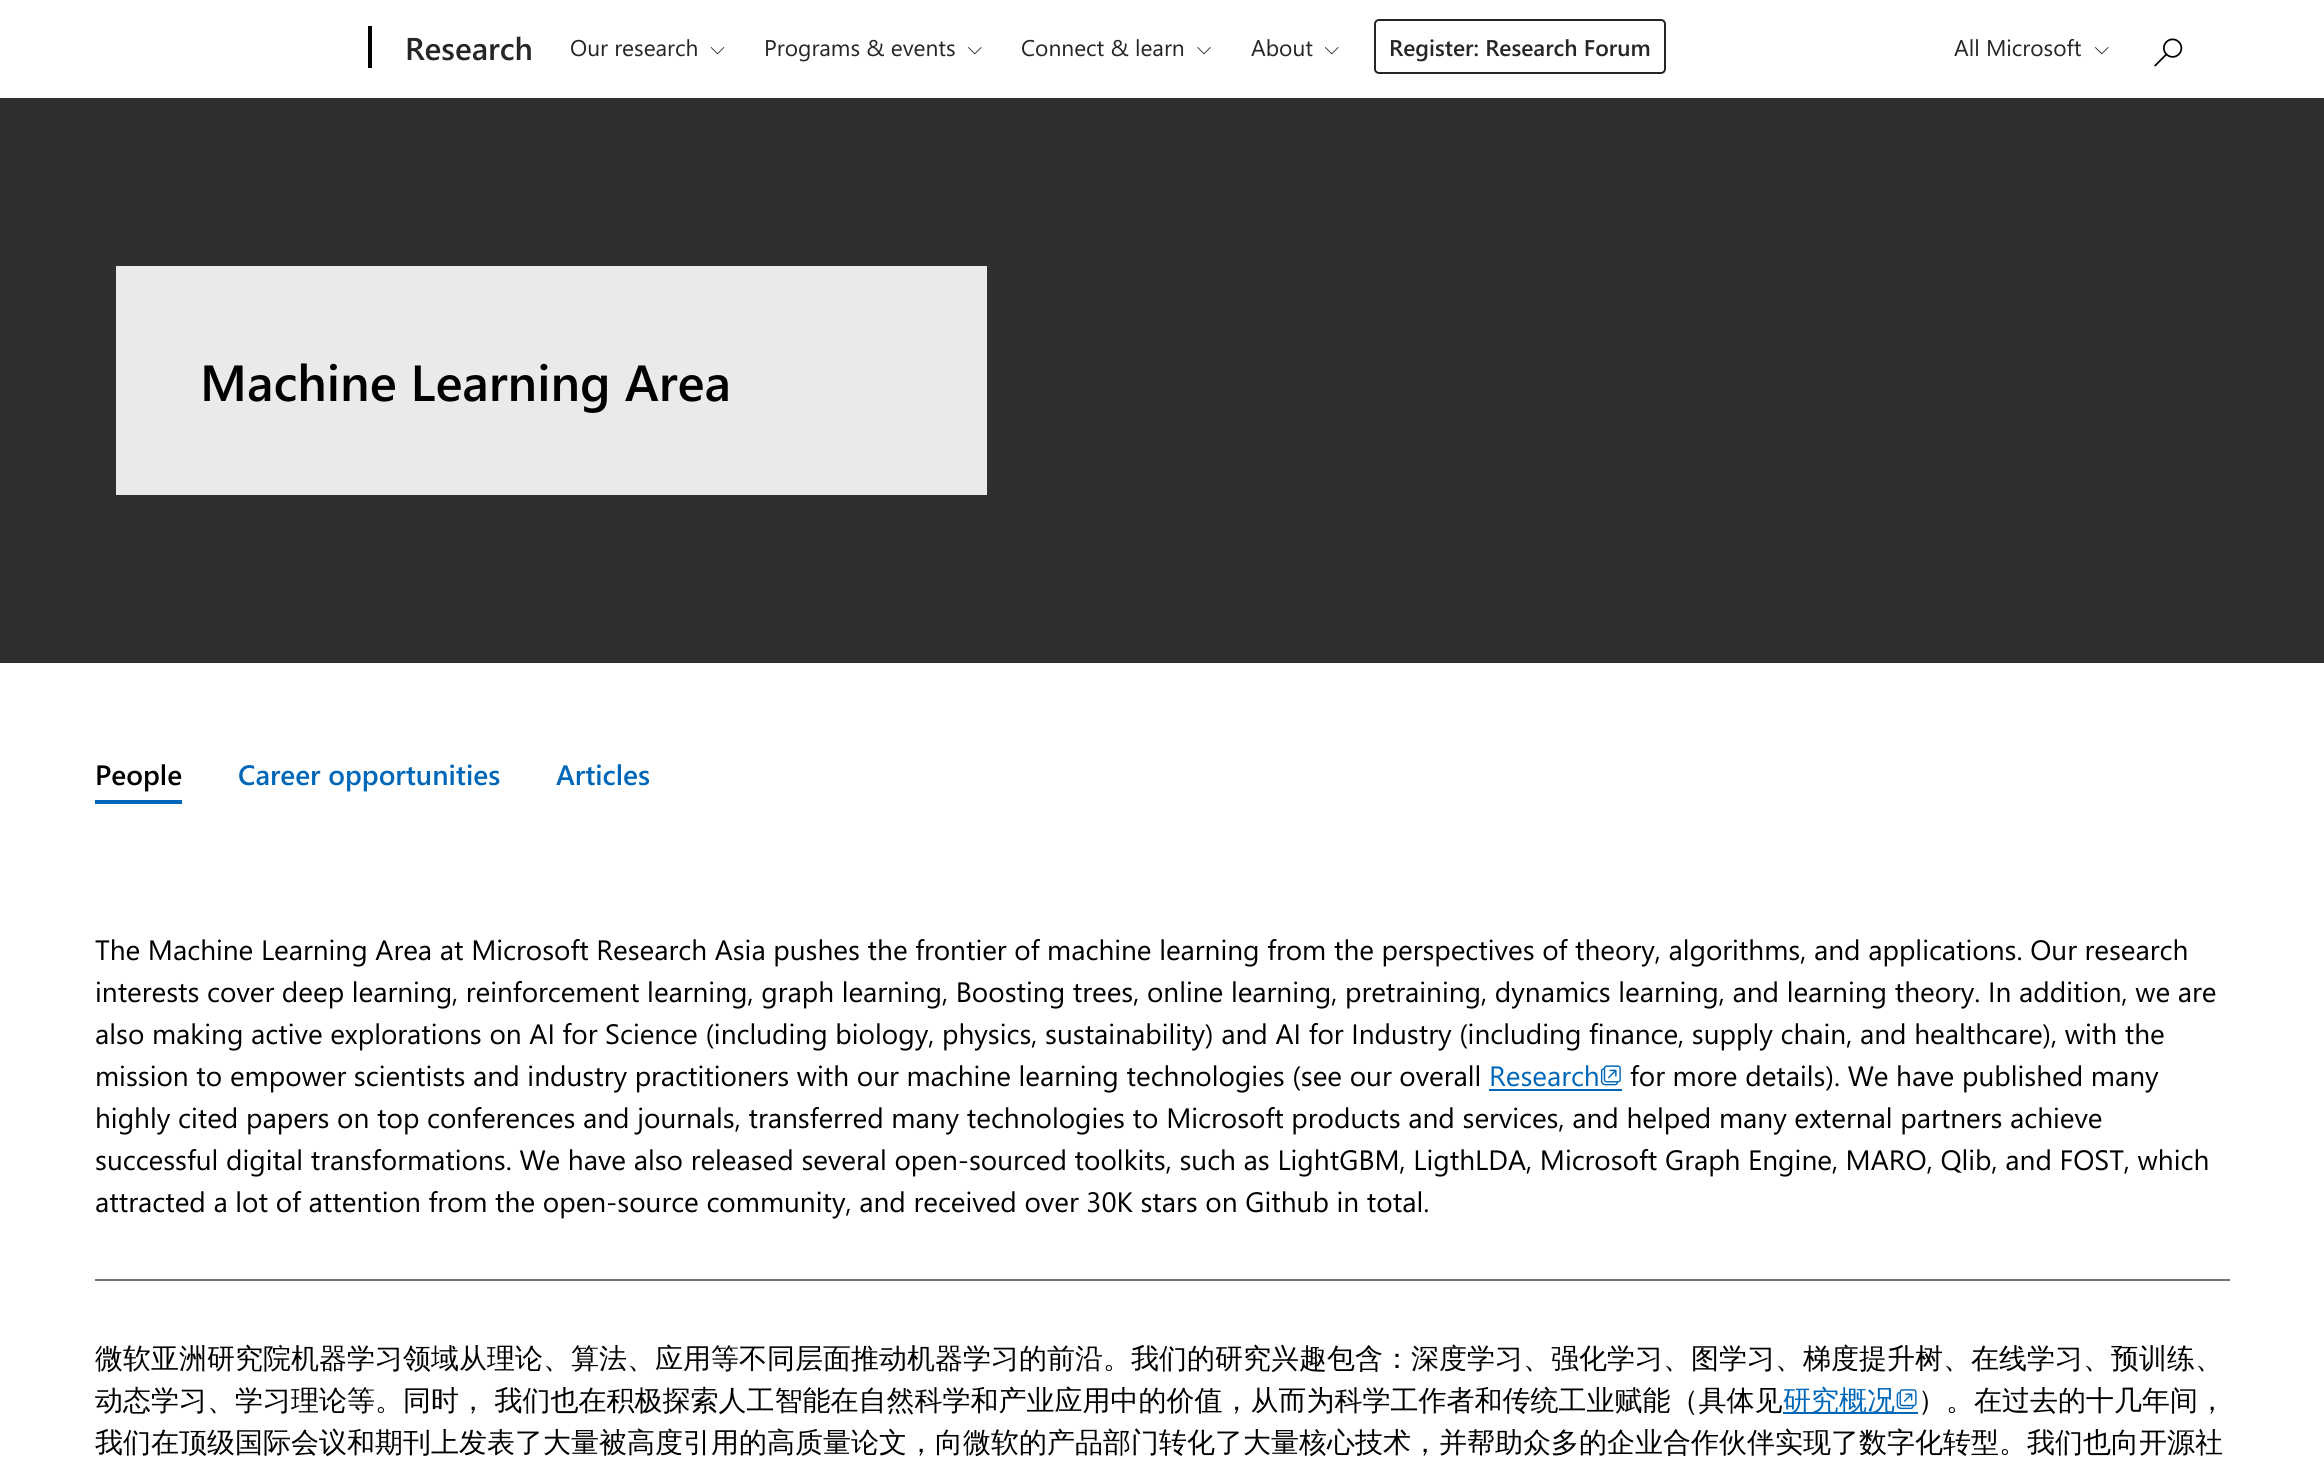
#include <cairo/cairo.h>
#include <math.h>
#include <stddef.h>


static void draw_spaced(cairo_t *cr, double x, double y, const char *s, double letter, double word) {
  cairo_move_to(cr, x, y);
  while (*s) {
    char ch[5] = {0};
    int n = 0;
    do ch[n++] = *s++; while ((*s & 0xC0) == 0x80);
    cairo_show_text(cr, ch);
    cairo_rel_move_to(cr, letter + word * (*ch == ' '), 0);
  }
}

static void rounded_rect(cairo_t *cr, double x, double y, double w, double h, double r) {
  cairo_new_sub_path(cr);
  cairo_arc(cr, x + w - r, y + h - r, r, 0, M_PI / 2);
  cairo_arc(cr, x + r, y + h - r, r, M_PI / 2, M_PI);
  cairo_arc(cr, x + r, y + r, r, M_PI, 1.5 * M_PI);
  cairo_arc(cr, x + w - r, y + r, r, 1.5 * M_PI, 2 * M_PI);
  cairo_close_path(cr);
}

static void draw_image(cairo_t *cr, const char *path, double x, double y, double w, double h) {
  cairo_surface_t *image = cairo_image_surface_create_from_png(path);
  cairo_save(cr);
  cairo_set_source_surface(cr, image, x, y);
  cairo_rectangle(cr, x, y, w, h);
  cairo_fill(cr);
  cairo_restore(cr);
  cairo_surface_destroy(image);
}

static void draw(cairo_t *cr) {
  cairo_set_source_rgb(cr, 1, 1, 1);
  cairo_paint(cr);
  cairo_set_source_rgb(cr, 0, 0, 0);
  cairo_rectangle(cr, 368, 26, 4, 42);
  cairo_fill(cr);
  draw_image(cr, "images/1.png", 710, 47, 15, 8);
  draw_image(cr, "images/2.png", 968, 47, 14, 8);
  draw_image(cr, "images/3.png", 1197, 47, 14, 8);
  draw_image(cr, "images/2.png", 1325, 47, 14, 8);
  rounded_rect(cr, 1375, 20, 290, 53, 4);
  cairo_set_source_rgb(cr, 38 / 255.0, 38 / 255.0, 38 / 255.0);
  cairo_stroke(cr);
  draw_image(cr, "images/2.png", 2095, 47, 14, 8);
  draw_image(cr, "images/4.png", 2154, 38, 29, 29);
  cairo_set_source_rgb(cr, 47 / 255.0, 47 / 255.0, 47 / 255.0);
  cairo_rectangle(cr, 0, 98, 2324, 565);
  cairo_fill(cr);
  cairo_set_source_rgb(cr, 234 / 255.0, 234 / 255.0, 234 / 255.0);
  cairo_rectangle(cr, 116, 266, 871, 229);
  cairo_fill(cr);
  cairo_set_source_rgb(cr, 0, 103 / 255.0, 184 / 255.0);
  cairo_rectangle(cr, 95, 800, 87, 4);
  cairo_fill(cr);
  cairo_rectangle(cr, 1489, 1089, 133, 2);
  cairo_fill(cr);
  draw_image(cr, "images/5.png", 1600, 1065, 21, 21);
  cairo_set_source_rgb(cr, 117 / 255.0, 117 / 255.0, 117 / 255.0);
  cairo_rectangle(cr, 95, 1279, 2135, 2);
  cairo_fill(cr);
  cairo_set_source_rgb(cr, 0, 103 / 255.0, 184 / 255.0);
  cairo_rectangle(cr, 1783, 1412, 135, 2);
  cairo_fill(cr);
  draw_image(cr, "images/6.png", 1896, 1389, 21, 21);
  cairo_select_font_face(cr, "Segoe UI SemiBold", CAIRO_FONT_SLANT_NORMAL, CAIRO_FONT_WEIGHT_NORMAL);
  cairo_set_font_size(cr, 31.5);
  cairo_set_source_rgb(cr, 38 / 255.0, 38 / 255.0, 38 / 255.0);
  cairo_move_to(cr, 405, 60);
  cairo_show_text(cr, "Research");
  cairo_select_font_face(cr, "Segoe UI", CAIRO_FONT_SLANT_NORMAL, CAIRO_FONT_WEIGHT_NORMAL);
  cairo_set_font_size(cr, 22.75);
  cairo_move_to(cr, 570, 56);
  cairo_show_text(cr, "Our research");
  cairo_move_to(cr, 764, 56);
  cairo_show_text(cr, "Programs & events");
  cairo_move_to(cr, 1021, 56);
  cairo_show_text(cr, "Connect & learn");
  cairo_move_to(cr, 1251, 56);
  cairo_show_text(cr, "About");
  cairo_select_font_face(cr, "Segoe UI SemiBold", CAIRO_FONT_SLANT_NORMAL, CAIRO_FONT_WEIGHT_NORMAL);
  cairo_move_to(cr, 1389, 56);
  cairo_show_text(cr, "Register: Research Forum");
  cairo_select_font_face(cr, "Segoe UI", CAIRO_FONT_SLANT_NORMAL, CAIRO_FONT_WEIGHT_NORMAL);
  cairo_move_to(cr, 1954, 56);
  cairo_show_text(cr, "All Microsoft");
  cairo_select_font_face(cr, "Segoe UI SemiBold", CAIRO_FONT_SLANT_NORMAL, CAIRO_FONT_WEIGHT_NORMAL);
  cairo_set_font_size(cr, 50.75);
  cairo_set_source_rgb(cr, 0, 0, 0);
  cairo_move_to(cr, 200, 401);
  cairo_show_text(cr, "Machine Learning Area");
  cairo_set_font_size(cr, 28);
  cairo_move_to(cr, 95, 785);
  cairo_show_text(cr, "People");
  cairo_set_source_rgb(cr, 0, 103 / 255.0, 184 / 255.0);
  cairo_move_to(cr, 238, 785);
  cairo_show_text(cr, "Career opportunities");
  cairo_move_to(cr, 556, 785);
  cairo_show_text(cr, "Articles");
  cairo_select_font_face(cr, "Segoe UI", CAIRO_FONT_SLANT_NORMAL, CAIRO_FONT_WEIGHT_NORMAL);
  cairo_set_source_rgb(cr, 0, 0, 0);
  cairo_move_to(cr, 95, 960);
  cairo_show_text(cr, "The Machine Learning Area at Microsoft Research Asia pushes the frontier of machine learning from the perspectives of theory, algorithms, and applications. Our research");
  cairo_move_to(cr, 95, 1002);
  cairo_show_text(cr, "interests cover deep learning, reinforcement learning, graph learning, Boosting trees, online learning, pretraining, dynamics learning, and learning theory. In addition, we are");
  cairo_move_to(cr, 95, 1044);
  cairo_show_text(cr, "also making active explorations on AI for Science (including biology, physics, sustainability) and AI for Industry (including finance, supply chain, and healthcare), with the");
  cairo_move_to(cr, 95, 1086);
  cairo_show_text(cr, "mission to empower scientists and industry practitioners with our machine learning technologies (see our overall");
  cairo_set_source_rgb(cr, 0, 103 / 255.0, 184 / 255.0);
  cairo_move_to(cr, 1489, 1086);
  cairo_show_text(cr, "Research");
  cairo_set_source_rgb(cr, 0, 0, 0);
  cairo_move_to(cr, 1630, 1086);
  cairo_show_text(cr, "for more details). We have published many");
  cairo_move_to(cr, 95, 1128);
  cairo_show_text(cr, "highly cited papers on top conferences and journals, transferred many technologies to Microsoft products and services, and helped many external partners achieve");
  cairo_move_to(cr, 95, 1170);
  cairo_show_text(cr, "successful digital transformations. We have also released several open-sourced toolkits, such as LightGBM, LigthLDA, Microsoft Graph Engine, MARO, Qlib, and FOST, which");
  cairo_move_to(cr, 95, 1212);
  cairo_show_text(cr, "attracted a lot of attention from the open-source community, and received over 30K stars on Github in total.");
  cairo_select_font_face(cr, "WenQuanYi Zen Hei Medium", CAIRO_FONT_SLANT_NORMAL, CAIRO_FONT_WEIGHT_NORMAL);
  cairo_move_to(cr, 95, 1368);
  cairo_show_text(cr, "微软亚洲研究院机器学习领域从理论、算法、应用等不同层面推动机器学习的前沿。我们的研究兴趣包含：深度学习、强化学习、图学习、梯度提升树、在线学习、预训练、");
  draw_spaced(cr, 95, 1410, "动态学习、学习理论等。同时， 我们也在积极探索人工智能在自然科学和产业应用中的价值，从而为科学工作者和传统工业赋能（具体见", 0, -1);
  cairo_set_source_rgb(cr, 0, 103 / 255.0, 184 / 255.0);
  cairo_move_to(cr, 1783, 1410);
  cairo_show_text(cr, "研究概况");
  cairo_set_source_rgb(cr, 0, 0, 0);
  cairo_move_to(cr, 1918, 1410);
  cairo_show_text(cr, "）。在过去的十几年间，");
  cairo_move_to(cr, 95, 1452);
  cairo_show_text(cr, "我们在顶级国际会议和期刊上发表了大量被高度引用的高质量论文，向微软的产品部门转化了大量核心技术，并帮助众多的企业合作伙伴实现了数字化转型。我们也向开源社");
}

int main(void) {
  cairo_surface_t *surface = cairo_image_surface_create(CAIRO_FORMAT_RGB24, 2324, 1457);
  cairo_t *cr = cairo_create(surface);
  cairo_font_options_t *options = cairo_font_options_create();
  cairo_font_options_set_hint_metrics(options, CAIRO_HINT_METRICS_OFF);
  cairo_font_options_set_hint_style(options, CAIRO_HINT_STYLE_NONE);
  cairo_set_font_options(cr, options);
  cairo_set_miter_limit(cr, 4);
  draw(cr);
  cairo_surface_write_to_png(surface, "out.png");
  cairo_font_options_destroy(options);
  cairo_destroy(cr);
  cairo_surface_destroy(surface);
  return 0;
}
